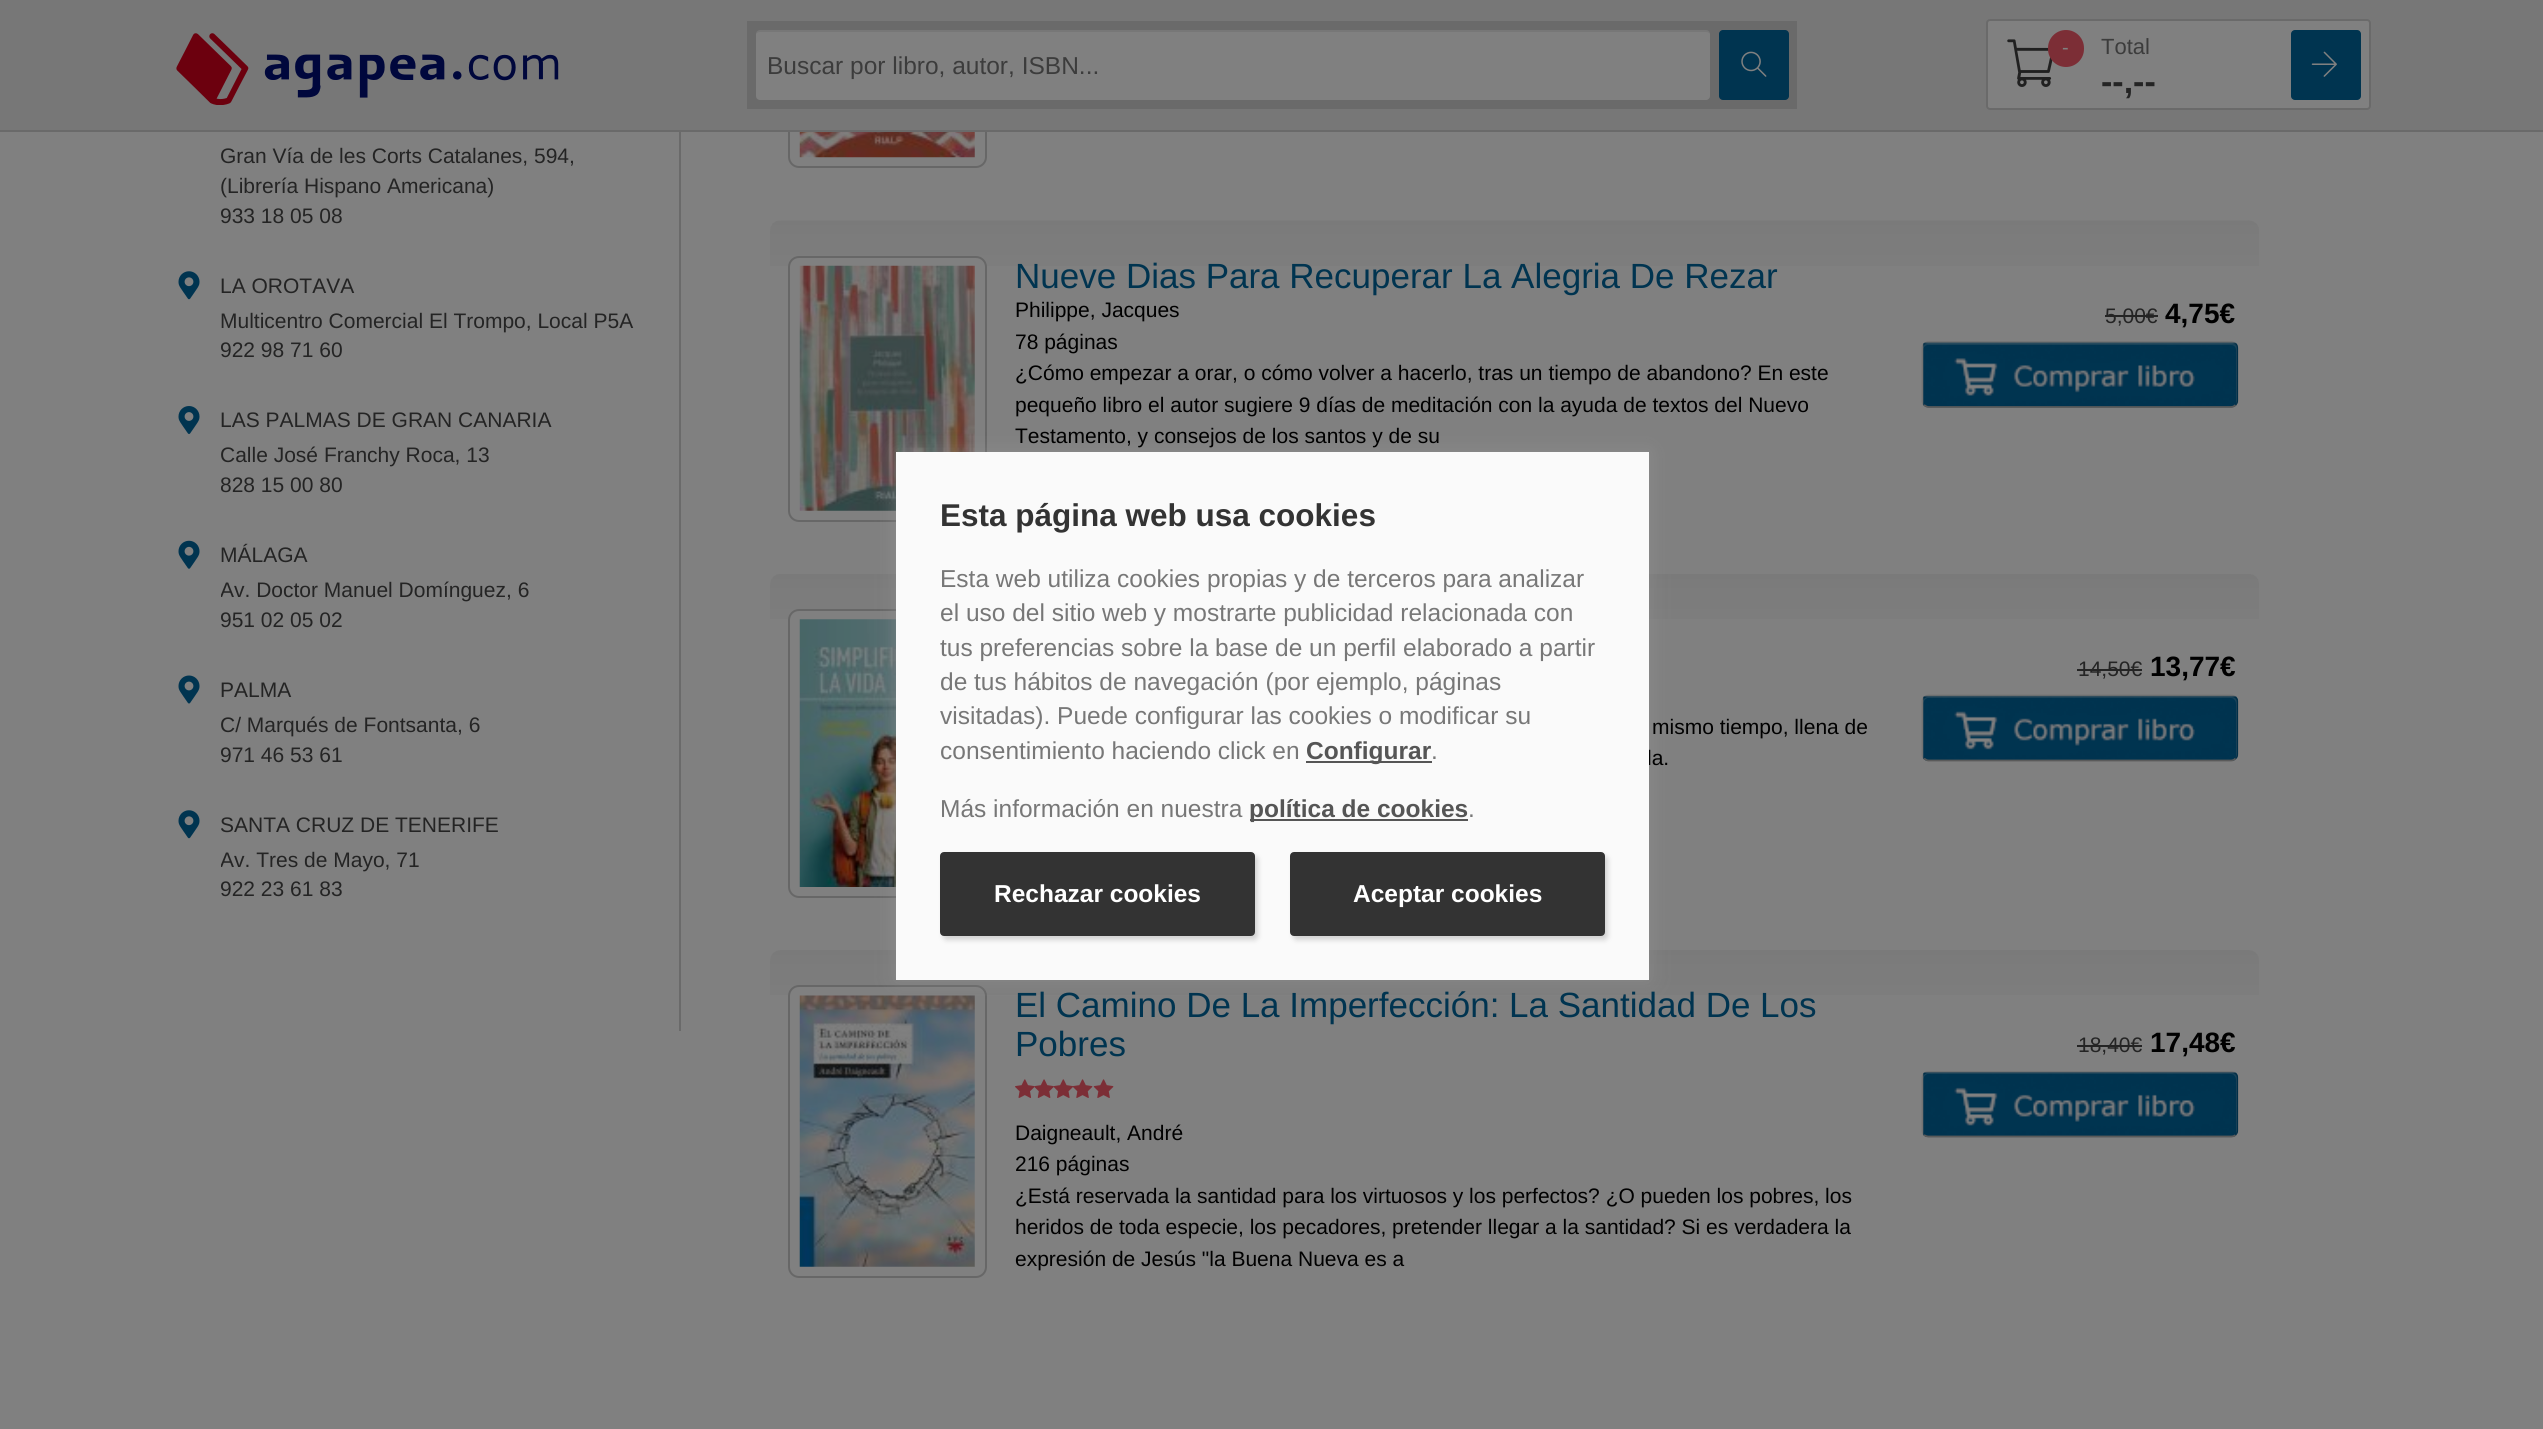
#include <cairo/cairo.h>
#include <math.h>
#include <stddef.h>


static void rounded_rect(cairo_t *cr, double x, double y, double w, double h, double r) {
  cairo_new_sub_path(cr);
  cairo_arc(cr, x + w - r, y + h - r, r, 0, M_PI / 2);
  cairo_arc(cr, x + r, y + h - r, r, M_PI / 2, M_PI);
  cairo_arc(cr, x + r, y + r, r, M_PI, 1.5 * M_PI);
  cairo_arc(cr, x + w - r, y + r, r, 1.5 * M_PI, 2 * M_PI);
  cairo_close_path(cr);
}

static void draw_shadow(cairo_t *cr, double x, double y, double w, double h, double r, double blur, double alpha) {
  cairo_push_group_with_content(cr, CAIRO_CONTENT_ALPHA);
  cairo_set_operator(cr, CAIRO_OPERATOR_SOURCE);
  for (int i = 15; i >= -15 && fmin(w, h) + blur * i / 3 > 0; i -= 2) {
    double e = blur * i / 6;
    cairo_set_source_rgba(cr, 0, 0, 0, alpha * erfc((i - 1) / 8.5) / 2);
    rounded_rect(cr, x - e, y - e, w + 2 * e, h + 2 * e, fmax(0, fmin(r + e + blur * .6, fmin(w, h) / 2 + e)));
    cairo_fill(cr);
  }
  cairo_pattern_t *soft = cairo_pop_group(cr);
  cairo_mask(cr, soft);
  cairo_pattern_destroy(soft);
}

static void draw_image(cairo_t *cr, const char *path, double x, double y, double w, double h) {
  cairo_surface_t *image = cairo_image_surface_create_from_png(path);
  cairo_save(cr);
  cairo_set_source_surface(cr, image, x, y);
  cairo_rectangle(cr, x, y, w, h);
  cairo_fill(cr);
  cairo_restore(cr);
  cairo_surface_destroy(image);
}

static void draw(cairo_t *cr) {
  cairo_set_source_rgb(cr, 128 / 255.0, 128 / 255.0, 128 / 255.0);
  cairo_paint(cr);
  rounded_rect(cr, 789, -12, 197, 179, 10);
  cairo_set_source_rgb(cr, 103 / 255.0, 103 / 255.0, 103 / 255.0);
  cairo_stroke(cr);
  cairo_set_source_rgb(cr, 119 / 255.0, 119 / 255.0, 119 / 255.0);
  cairo_rectangle(cr, 0, 0, 2543, 130);
  cairo_fill(cr);
  cairo_set_source_rgb(cr, 106 / 255.0, 106 / 255.0, 106 / 255.0);
  cairo_rectangle(cr, 0, 130, 2543, 2);
  cairo_fill(cr);
  draw_image(cr, "images/1.png", 176, 33, 383, 72);
  cairo_rectangle(cr, 747, 21, 1050, 88);
  cairo_fill(cr);
  cairo_set_source_rgb(cr, 128 / 255.0, 128 / 255.0, 128 / 255.0);
  rounded_rect(cr, 756, 30, 954, 70, 4);
  cairo_fill(cr);
  cairo_set_source_rgba(cr, 0, 0, 0, 0.07);
  cairo_new_path(cr);
  cairo_move_to(cr, 760, 32);
  cairo_line_to(cr, 1706, 32);
  cairo_curve_to(cr, 1708, 32, 1710, 33, 1710, 35);
  cairo_curve_to(cr, 1710, 32, 1709, 30, 1706, 30);
  cairo_line_to(cr, 760, 30);
  cairo_curve_to(cr, 757, 30, 756, 32, 756, 35);
  cairo_curve_to(cr, 756, 33, 758, 32, 760, 32);
  cairo_close_path(cr);
  cairo_fill(cr);
  cairo_set_source_rgb(cr, 0, 52 / 255.0, 80 / 255.0);
  rounded_rect(cr, 1719, 30, 70, 70, 4);
  cairo_fill(cr);
  draw_image(cr, "images/2.png", 1741, 51, 26, 26);
  cairo_set_source_rgb(cr, 128 / 255.0, 128 / 255.0, 128 / 255.0);
  rounded_rect(cr, 1987, 20, 383, 89, 3);
  cairo_fill_preserve(cr);
  cairo_set_source_rgb(cr, 106 / 255.0, 106 / 255.0, 106 / 255.0);
  cairo_stroke(cr);
  draw_image(cr, "images/3.png", 2007, 39, 46, 48);
  cairo_set_source_rgb(cr, 124 / 255.0, 46 / 255.0, 54 / 255.0);
  rounded_rect(cr, 2048, 30, 36, 37, 18);
  cairo_fill(cr);
  cairo_set_source_rgb(cr, 0, 52 / 255.0, 80 / 255.0);
  rounded_rect(cr, 2291, 30, 70, 70, 4);
  cairo_fill(cr);
  draw_image(cr, "images/4.png", 2311, 51, 26, 26);
  cairo_set_source_rgb(cr, 106 / 255.0, 106 / 255.0, 106 / 255.0);
  cairo_rectangle(cr, 679, 132, 2, 899);
  cairo_fill(cr);
  draw_image(cr, "images/5.png", 178, 271, 22, 29);
  draw_image(cr, "images/6.png", 178, 406, 22, 28);
  draw_image(cr, "images/7.png", 178, 540, 22, 29);
  draw_image(cr, "images/8.png", 178, 675, 22, 29);
  draw_image(cr, "images/5.png", 178, 810, 22, 29);
  draw_image(cr, "images/9.png", 799, 132, 176, 26);
  draw_image(cr, "images/10.png", 770, 220, 1489, 46);
  cairo_set_source_rgb(cr, 128 / 255.0, 128 / 255.0, 128 / 255.0);
  rounded_rect(cr, 789, 257, 197, 264, 10);
  cairo_fill_preserve(cr);
  cairo_set_source_rgb(cr, 103 / 255.0, 103 / 255.0, 103 / 255.0);
  cairo_stroke(cr);
  draw_image(cr, "images/11.png", 799, 265, 176, 246);
  cairo_set_source_rgb(cr, 36 / 255.0, 36 / 255.0, 36 / 255.0);
  cairo_rectangle(cr, 2105, 315, 53, 2);
  cairo_fill(cr);
  draw_image(cr, "images/12.png", 1923, 342, 316, 66);
  cairo_set_source_rgba(cr, 128 / 255.0, 128 / 255.0, 128 / 255.0, 0.2);
  cairo_new_path(cr);
  cairo_move_to(cr, 1928, 345);
  cairo_line_to(cr, 2231, 345);
  cairo_curve_to(cr, 2234, 345, 2236, 347, 2236, 350);
  cairo_line_to(cr, 2236, 402);
  cairo_line_to(cr, 2236, 405);
  cairo_curve_to(cr, 2236, 404, 2237, 402, 2237, 401);
  cairo_line_to(cr, 2237, 348);
  cairo_curve_to(cr, 2237, 345, 2235, 343, 2232, 343);
  cairo_line_to(cr, 1928, 343);
  cairo_curve_to(cr, 1925, 343, 1923, 345, 1923, 348);
  cairo_line_to(cr, 1923, 350);
  cairo_curve_to(cr, 1923, 347, 1926, 345, 1928, 345);
  cairo_close_path(cr);
  cairo_fill(cr);
  cairo_new_path(cr);
  cairo_move_to(cr, 2235.5, 405);
  cairo_curve_to(cr, 2234.5, 406, 2233, 407, 2231, 407);
  cairo_line_to(cr, 1928.5, 407);
  cairo_curve_to(cr, 1927, 407, 1925.5, 406, 1924, 405);
  cairo_set_source_rgb(cr, 90 / 255.0, 90 / 255.0, 90 / 255.0);
  cairo_set_line_width(cr, 1.8);
  cairo_stroke(cr);
  cairo_new_path(cr);
  cairo_move_to(cr, 1924, 405);
  cairo_curve_to(cr, 1923, 404, 1922.5, 402.5, 1922.5, 401);
  cairo_line_to(cr, 1922.5, 348);
  cairo_curve_to(cr, 1922.5, 346.5, 1923, 345, 1924, 344);
  cairo_curve_to(cr, 1925.5, 343, 1927, 342, 1928.5, 342);
  cairo_line_to(cr, 2231, 342);
  cairo_curve_to(cr, 2233, 342, 2234.5, 343, 2235.5, 344);
  cairo_curve_to(cr, 2236.5, 345, 2237.5, 346.5, 2237.5, 348);
  cairo_line_to(cr, 2237.5, 401);
  cairo_curve_to(cr, 2237.5, 402.5, 2236.5, 404, 2235.5, 405);
  cairo_set_source_rgba(cr, 0, 0, 0, 0.1);
  cairo_stroke(cr);
  draw_image(cr, "images/13.png", 770, 574, 1489, 45);
  cairo_set_source_rgb(cr, 36 / 255.0, 36 / 255.0, 36 / 255.0);
  cairo_rectangle(cr, 2077, 669, 65, 2);
  cairo_fill(cr);
  draw_image(cr, "images/14.png", 1923, 695, 316, 66);
  cairo_set_source_rgba(cr, 128 / 255.0, 128 / 255.0, 128 / 255.0, 0.2);
  cairo_new_path(cr);
  cairo_move_to(cr, 1928, 698);
  cairo_line_to(cr, 2231, 698);
  cairo_curve_to(cr, 2234, 698, 2236, 701, 2236, 704);
  cairo_line_to(cr, 2236, 756);
  cairo_line_to(cr, 2235, 759);
  cairo_curve_to(cr, 2236, 758, 2237, 756, 2237, 755);
  cairo_line_to(cr, 2237, 702);
  cairo_curve_to(cr, 2237, 699, 2235, 697, 2232, 697);
  cairo_line_to(cr, 1928, 697);
  cairo_curve_to(cr, 1925, 697, 1923, 699, 1923, 702);
  cairo_line_to(cr, 1923, 704);
  cairo_curve_to(cr, 1923, 701, 1926, 698, 1928, 698);
  cairo_close_path(cr);
  cairo_fill(cr);
  cairo_new_path(cr);
  cairo_move_to(cr, 2235.5, 758.5);
  cairo_curve_to(cr, 2234.5, 759.5, 2233, 760.5, 2231, 760.5);
  cairo_line_to(cr, 1928.5, 760.5);
  cairo_curve_to(cr, 1927, 760.5, 1925.5, 759.5, 1924, 758.5);
  cairo_set_source_rgb(cr, 90 / 255.0, 90 / 255.0, 90 / 255.0);
  cairo_stroke(cr);
  cairo_new_path(cr);
  cairo_move_to(cr, 1924, 758.5);
  cairo_curve_to(cr, 1923, 757.5, 1922.5, 756, 1922.5, 754);
  cairo_line_to(cr, 1922.5, 702);
  cairo_curve_to(cr, 1922.5, 700, 1923, 698.5, 1924, 697.5);
  cairo_curve_to(cr, 1925.5, 696.5, 1927, 695.5, 1928.5, 695.5);
  cairo_line_to(cr, 2231, 695.5);
  cairo_curve_to(cr, 2233, 695.5, 2234.5, 696.5, 2235.5, 697.5);
  cairo_curve_to(cr, 2236.5, 698.5, 2237.5, 700, 2237.5, 702);
  cairo_line_to(cr, 2237.5, 754);
  cairo_curve_to(cr, 2237.5, 756, 2236.5, 757.5, 2235.5, 758.5);
  cairo_set_source_rgba(cr, 0, 0, 0, 0.1);
  cairo_stroke(cr);
  cairo_set_source_rgb(cr, 128 / 255.0, 128 / 255.0, 128 / 255.0);
  rounded_rect(cr, 789, 610, 197, 287, 10);
  cairo_fill_preserve(cr);
  cairo_set_source_rgb(cr, 103 / 255.0, 103 / 255.0, 103 / 255.0);
  cairo_set_line_width(cr, 2);
  cairo_stroke(cr);
  draw_image(cr, "images/15.png", 799, 619, 97, 268);
  draw_image(cr, "images/16.png", 770, 950, 1489, 45);
  cairo_set_source_rgb(cr, 128 / 255.0, 128 / 255.0, 128 / 255.0);
  rounded_rect(cr, 789, 986, 197, 291, 10);
  cairo_fill_preserve(cr);
  cairo_set_source_rgb(cr, 103 / 255.0, 103 / 255.0, 103 / 255.0);
  cairo_stroke(cr);
  draw_image(cr, "images/17.png", 799, 995, 176, 272);
  draw_image(cr, "images/18.png", 1015, 1079, 20, 19);
  draw_image(cr, "images/19.png", 1034, 1079, 20, 19);
  draw_image(cr, "images/20.png", 1053, 1079, 21, 19);
  draw_image(cr, "images/21.png", 1073, 1079, 20, 19);
  draw_image(cr, "images/22.png", 1093, 1079, 21, 19);
  cairo_set_source_rgb(cr, 36 / 255.0, 36 / 255.0, 36 / 255.0);
  cairo_rectangle(cr, 2077, 1045, 65, 2);
  cairo_fill(cr);
  draw_image(cr, "images/23.png", 1923, 1072, 316, 66);
  cairo_set_source_rgba(cr, 128 / 255.0, 128 / 255.0, 128 / 255.0, 0.2);
  cairo_new_path(cr);
  cairo_move_to(cr, 1928, 1074);
  cairo_line_to(cr, 2231, 1074);
  cairo_curve_to(cr, 2234, 1074, 2236, 1077, 2236, 1080);
  cairo_line_to(cr, 2236, 1132);
  cairo_line_to(cr, 2236, 1135);
  cairo_curve_to(cr, 2236, 1134, 2237, 1132, 2237, 1131);
  cairo_line_to(cr, 2237, 1078);
  cairo_curve_to(cr, 2237, 1075, 2235, 1073, 2232, 1073);
  cairo_line_to(cr, 1928, 1073);
  cairo_curve_to(cr, 1925, 1073, 1923, 1075, 1923, 1078);
  cairo_line_to(cr, 1923, 1080);
  cairo_curve_to(cr, 1923, 1077, 1926, 1074, 1928, 1074);
  cairo_close_path(cr);
  cairo_fill(cr);
  cairo_new_path(cr);
  cairo_move_to(cr, 2235.5, 1135);
  cairo_curve_to(cr, 2234.5, 1136, 2233, 1136.5, 2231, 1136.5);
  cairo_line_to(cr, 1928.5, 1136.5);
  cairo_curve_to(cr, 1927, 1136.5, 1925.5, 1136, 1924, 1135);
  cairo_set_source_rgb(cr, 90 / 255.0, 90 / 255.0, 90 / 255.0);
  cairo_set_line_width(cr, 1.8);
  cairo_stroke(cr);
  cairo_new_path(cr);
  cairo_move_to(cr, 1924, 1135);
  cairo_curve_to(cr, 1923, 1133.5, 1922.5, 1132, 1922.5, 1130.5);
  cairo_line_to(cr, 1922.5, 1078);
  cairo_curve_to(cr, 1922.5, 1076.5, 1923, 1075, 1924, 1073.5);
  cairo_curve_to(cr, 1925.5, 1072.5, 1927, 1072, 1928.5, 1072);
  cairo_line_to(cr, 2231, 1072);
  cairo_curve_to(cr, 2233, 1072, 2234.5, 1072.5, 2235.5, 1073.5);
  cairo_curve_to(cr, 2236.5, 1075, 2237.5, 1076.5, 2237.5, 1078);
  cairo_line_to(cr, 2237.5, 1130.5);
  cairo_curve_to(cr, 2237.5, 1132, 2236.5, 1133.5, 2235.5, 1135);
  cairo_set_source_rgba(cr, 0, 0, 0, 0.1);
  cairo_stroke(cr);
  cairo_set_source_rgb(cr, 153 / 255.0, 153 / 255.0, 153 / 255.0);
  draw_shadow(cr, 896, 452, 753, 528, 0, 9, 0.5);
  cairo_select_font_face(cr, "Liberation Sans", CAIRO_FONT_SLANT_NORMAL, CAIRO_FONT_WEIGHT_NORMAL);
  cairo_set_font_size(cr, 24.5);
  cairo_set_source_rgb(cr, 60 / 255.0, 60 / 255.0, 60 / 255.0);
  cairo_move_to(cr, 767, 74);
  cairo_show_text(cr, "Buscar por libro, autor, ISBN...");
  cairo_set_font_size(cr, 20);
  cairo_set_source_rgb(cr, 128 / 255.0, 128 / 255.0, 128 / 255.0);
  cairo_move_to(cr, 2062, 54);
  cairo_show_text(cr, "-");
  cairo_set_font_size(cr, 22);
  cairo_set_source_rgb(cr, 60 / 255.0, 60 / 255.0, 60 / 255.0);
  cairo_move_to(cr, 2101, 54);
  cairo_show_text(cr, "Total");
  cairo_select_font_face(cr, "Liberation Sans", CAIRO_FONT_SLANT_NORMAL, CAIRO_FONT_WEIGHT_BOLD);
  cairo_set_font_size(cr, 34);
  cairo_set_source_rgb(cr, 36 / 255.0, 36 / 255.0, 36 / 255.0);
  cairo_move_to(cr, 2101, 93);
  cairo_show_text(cr, "--,--");
  cairo_save(cr);
  cairo_rectangle(cr, 221, 112, 432, 119);
  cairo_clip(cr);
  cairo_select_font_face(cr, "Liberation Sans", CAIRO_FONT_SLANT_NORMAL, CAIRO_FONT_WEIGHT_NORMAL);
  cairo_set_font_size(cr, 21);
  cairo_move_to(cr, 220, 163);
  cairo_show_text(cr, "Gran Vía de les Corts Catalanes, 594,");
  cairo_restore(cr);
  cairo_select_font_face(cr, "Liberation Sans", CAIRO_FONT_SLANT_NORMAL, CAIRO_FONT_WEIGHT_NORMAL);
  cairo_set_font_size(cr, 21);
  cairo_move_to(cr, 220, 193);
  cairo_show_text(cr, "(Librería Hispano Americana)");
  cairo_save(cr);
  cairo_rectangle(cr, 221, 112, 432, 119);
  cairo_clip(cr);
  cairo_move_to(cr, 220, 223);
  cairo_show_text(cr, "933 18 05 08");
  cairo_restore(cr);
  cairo_move_to(cr, 220, 293);
  cairo_show_text(cr, "LA OROTAVA");
  cairo_move_to(cr, 220, 328);
  cairo_show_text(cr, "Multicentro Comercial El Trompo, Local P5A");
  cairo_save(cr);
  cairo_rectangle(cr, 221, 306, 432, 60);
  cairo_clip(cr);
  cairo_move_to(cr, 220, 357);
  cairo_show_text(cr, "922 98 71 60");
  cairo_restore(cr);
  cairo_move_to(cr, 220, 427);
  cairo_show_text(cr, "LAS PALMAS DE GRAN CANARIA");
  cairo_save(cr);
  cairo_rectangle(cr, 221, 441, 432, 60);
  cairo_clip(cr);
  cairo_move_to(cr, 220, 462);
  cairo_show_text(cr, "Calle José Franchy Roca, 13");
  cairo_move_to(cr, 220, 492);
  cairo_show_text(cr, "828 15 00 80");
  cairo_restore(cr);
  cairo_move_to(cr, 220, 562);
  cairo_show_text(cr, "MÁLAGA");
  cairo_save(cr);
  cairo_rectangle(cr, 221, 576, 432, 59);
  cairo_clip(cr);
  cairo_move_to(cr, 220, 597);
  cairo_show_text(cr, "Av. Doctor Manuel Domínguez, 6");
  cairo_move_to(cr, 220, 627);
  cairo_show_text(cr, "951 02 05 02");
  cairo_restore(cr);
  cairo_move_to(cr, 220, 697);
  cairo_show_text(cr, "PALMA");
  cairo_save(cr);
  cairo_rectangle(cr, 221, 711, 432, 59);
  cairo_clip(cr);
  cairo_move_to(cr, 220, 732);
  cairo_show_text(cr, "C/ Marqués de Fontsanta, 6");
  cairo_move_to(cr, 220, 762);
  cairo_show_text(cr, "971 46 53 61");
  cairo_restore(cr);
  cairo_move_to(cr, 220, 832);
  cairo_show_text(cr, "SANTA CRUZ DE TENERIFE");
  cairo_save(cr);
  cairo_rectangle(cr, 221, 845, 432, 60);
  cairo_clip(cr);
  cairo_move_to(cr, 220, 867);
  cairo_show_text(cr, "Av. Tres de Mayo, 71");
  cairo_move_to(cr, 220, 896);
  cairo_show_text(cr, "922 23 61 83");
  cairo_restore(cr);
  cairo_set_font_size(cr, 35);
  cairo_set_source_rgb(cr, 0, 52 / 255.0, 80 / 255.0);
  cairo_move_to(cr, 1015, 288);
  cairo_show_text(cr, "Nueve Dias Para Recuperar La Alegria De Rezar");
  cairo_set_font_size(cr, 21);
  cairo_set_source_rgb(cr, 0, 0, 0);
  cairo_move_to(cr, 1015, 317);
  cairo_show_text(cr, "Philippe, Jacques");
  cairo_move_to(cr, 1015, 349);
  cairo_show_text(cr, "78 páginas");
  cairo_move_to(cr, 1015, 380);
  cairo_show_text(cr, "¿Cómo empezar a orar, o cómo volver a hacerlo, tras un tiempo de abandono? En este");
  cairo_move_to(cr, 1015, 412);
  cairo_show_text(cr, "pequeño libro el autor sugiere 9 días de meditación con la ayuda de textos del Nuevo");
  cairo_move_to(cr, 1015, 443);
  cairo_show_text(cr, "Testamento, y consejos de los santos y de su");
  cairo_set_source_rgb(cr, 36 / 255.0, 36 / 255.0, 36 / 255.0);
  cairo_move_to(cr, 2105, 323);
  cairo_show_text(cr, "5,00€");
  cairo_select_font_face(cr, "Liberation Sans", CAIRO_FONT_SLANT_NORMAL, CAIRO_FONT_WEIGHT_BOLD);
  cairo_set_font_size(cr, 28);
  cairo_set_source_rgb(cr, 0, 0, 0);
  cairo_move_to(cr, 2165, 323);
  cairo_show_text(cr, "4,75€");
  cairo_select_font_face(cr, "Liberation Sans", CAIRO_FONT_SLANT_NORMAL, CAIRO_FONT_WEIGHT_NORMAL);
  cairo_set_font_size(cr, 21);
  cairo_set_source_rgb(cr, 36 / 255.0, 36 / 255.0, 36 / 255.0);
  cairo_move_to(cr, 2078, 676);
  cairo_show_text(cr, "14,50€");
  cairo_select_font_face(cr, "Liberation Sans", CAIRO_FONT_SLANT_NORMAL, CAIRO_FONT_WEIGHT_BOLD);
  cairo_set_font_size(cr, 28);
  cairo_set_source_rgb(cr, 0, 0, 0);
  cairo_move_to(cr, 2150, 676);
  cairo_show_text(cr, "13,77€");
  cairo_select_font_face(cr, "Liberation Sans", CAIRO_FONT_SLANT_NORMAL, CAIRO_FONT_WEIGHT_NORMAL);
  cairo_set_font_size(cr, 21);
  cairo_move_to(cr, 1652, 734);
  cairo_show_text(cr, "mismo tiempo, llena de");
  cairo_move_to(cr, 1647, 765);
  cairo_show_text(cr, "la.");
  cairo_set_font_size(cr, 35);
  cairo_set_source_rgb(cr, 0, 52 / 255.0, 80 / 255.0);
  cairo_move_to(cr, 1015, 1017);
  cairo_show_text(cr, "El Camino De La Imperfección: La Santidad De Los");
  cairo_move_to(cr, 1015, 1056);
  cairo_show_text(cr, "Pobres");
  cairo_set_font_size(cr, 21);
  cairo_set_source_rgb(cr, 0, 0, 0);
  cairo_move_to(cr, 1015, 1140);
  cairo_show_text(cr, "Daigneault, André");
  cairo_move_to(cr, 1015, 1171);
  cairo_show_text(cr, "216 páginas");
  cairo_move_to(cr, 1015, 1203);
  cairo_show_text(cr, "¿Está reservada la santidad para los virtuosos y los perfectos? ¿O pueden los pobres, los");
  cairo_move_to(cr, 1015, 1234);
  cairo_show_text(cr, "heridos de toda especie, los pecadores, pretender llegar a la santidad? Si es verdadera la");
  cairo_move_to(cr, 1015, 1266);
  cairo_show_text(cr, "expresión de Jesús \"la Buena Nueva es a");
  cairo_set_source_rgb(cr, 36 / 255.0, 36 / 255.0, 36 / 255.0);
  cairo_move_to(cr, 2078, 1052);
  cairo_show_text(cr, "18,40€");
  cairo_select_font_face(cr, "Liberation Sans", CAIRO_FONT_SLANT_NORMAL, CAIRO_FONT_WEIGHT_BOLD);
  cairo_set_font_size(cr, 28);
  cairo_set_source_rgb(cr, 0, 0, 0);
  cairo_move_to(cr, 2150, 1052);
  cairo_show_text(cr, "17,48€");
  cairo_set_source_rgb(cr, 250 / 255.0, 250 / 255.0, 250 / 255.0);
  cairo_rectangle(cr, 896, 452, 753, 528);
  cairo_fill(cr);
  cairo_set_font_size(cr, 31.5);
  cairo_set_source_rgb(cr, 51 / 255.0, 51 / 255.0, 51 / 255.0);
  cairo_move_to(cr, 940, 526);
  cairo_show_text(cr, "Esta página web usa cookies");
  cairo_select_font_face(cr, "Liberation Sans", CAIRO_FONT_SLANT_NORMAL, CAIRO_FONT_WEIGHT_NORMAL);
  cairo_set_font_size(cr, 24.5);
  cairo_set_source_rgb(cr, 119 / 255.0, 119 / 255.0, 119 / 255.0);
  cairo_move_to(cr, 940, 587);
  cairo_show_text(cr, "Esta web utiliza cookies propias y de terceros para analizar");
  cairo_move_to(cr, 940, 621);
  cairo_show_text(cr, "el uso del sitio web y mostrarte publicidad relacionada con");
  cairo_move_to(cr, 940, 656);
  cairo_show_text(cr, "tus preferencias sobre la base de un perfil elaborado a partir");
  cairo_move_to(cr, 940, 690);
  cairo_show_text(cr, "de tus hábitos de navegación (por ejemplo, páginas");
  cairo_move_to(cr, 940, 724);
  cairo_show_text(cr, "visitadas). Puede configurar las cookies o modificar su");
  cairo_move_to(cr, 940, 759);
  cairo_show_text(cr, "consentimiento haciendo click en");
  cairo_set_source_rgb(cr, 85 / 255.0, 85 / 255.0, 85 / 255.0);
  cairo_rectangle(cr, 1306, 761, 126, 2);
  cairo_fill(cr);
  cairo_select_font_face(cr, "Liberation Sans", CAIRO_FONT_SLANT_NORMAL, CAIRO_FONT_WEIGHT_BOLD);
  cairo_move_to(cr, 1306, 759);
  cairo_show_text(cr, "Configurar");
  cairo_select_font_face(cr, "Liberation Sans", CAIRO_FONT_SLANT_NORMAL, CAIRO_FONT_WEIGHT_NORMAL);
  cairo_set_source_rgb(cr, 119 / 255.0, 119 / 255.0, 119 / 255.0);
  cairo_move_to(cr, 1431, 759);
  cairo_show_text(cr, ".");
  cairo_move_to(cr, 940, 817);
  cairo_show_text(cr, "Más información en nuestra");
  cairo_set_source_rgb(cr, 85 / 255.0, 85 / 255.0, 85 / 255.0);
  cairo_rectangle(cr, 1250, 819, 218, 2);
  cairo_fill(cr);
  cairo_select_font_face(cr, "Liberation Sans", CAIRO_FONT_SLANT_NORMAL, CAIRO_FONT_WEIGHT_BOLD);
  cairo_move_to(cr, 1249, 817);
  cairo_show_text(cr, "política de cookies");
  cairo_select_font_face(cr, "Liberation Sans", CAIRO_FONT_SLANT_NORMAL, CAIRO_FONT_WEIGHT_NORMAL);
  cairo_set_source_rgb(cr, 119 / 255.0, 119 / 255.0, 119 / 255.0);
  cairo_move_to(cr, 1468, 817);
  cairo_show_text(cr, ".");
  cairo_set_source_rgb(cr, 119 / 255.0, 119 / 255.0, 119 / 255.0);
  draw_shadow(cr, 943, 856, 315, 84, 4, 2.5, 0.3);
  cairo_set_source_rgb(cr, 51 / 255.0, 51 / 255.0, 51 / 255.0);
  rounded_rect(cr, 942, 854, 311, 80, 2);
  cairo_fill_preserve(cr);
  cairo_set_line_width(cr, 4);
  cairo_stroke(cr);
  cairo_select_font_face(cr, "Liberation Sans", CAIRO_FONT_SLANT_NORMAL, CAIRO_FONT_WEIGHT_BOLD);
  cairo_set_source_rgb(cr, 1, 1, 1);
  cairo_move_to(cr, 994, 902);
  cairo_show_text(cr, "Rechazar cookies");
  cairo_set_source_rgb(cr, 119 / 255.0, 119 / 255.0, 119 / 255.0);
  draw_shadow(cr, 1293, 856, 315, 84, 4, 2.5, 0.3);
  cairo_set_source_rgb(cr, 51 / 255.0, 51 / 255.0, 51 / 255.0);
  rounded_rect(cr, 1292, 854, 311, 80, 2);
  cairo_fill_preserve(cr);
  cairo_stroke(cr);
  cairo_set_source_rgb(cr, 1, 1, 1);
  cairo_move_to(cr, 1353, 902);
  cairo_show_text(cr, "Aceptar cookies");
}

int main(void) {
  cairo_surface_t *surface = cairo_image_surface_create(CAIRO_FORMAT_RGB24, 2543, 1429);
  cairo_t *cr = cairo_create(surface);
  cairo_font_options_t *options = cairo_font_options_create();
  cairo_font_options_set_hint_metrics(options, CAIRO_HINT_METRICS_OFF);
  cairo_font_options_set_hint_style(options, CAIRO_HINT_STYLE_NONE);
  cairo_set_font_options(cr, options);
  cairo_set_miter_limit(cr, 4);
  draw(cr);
  cairo_surface_write_to_png(surface, "out.png");
  cairo_font_options_destroy(options);
  cairo_destroy(cr);
  cairo_surface_destroy(surface);
  return 0;
}
